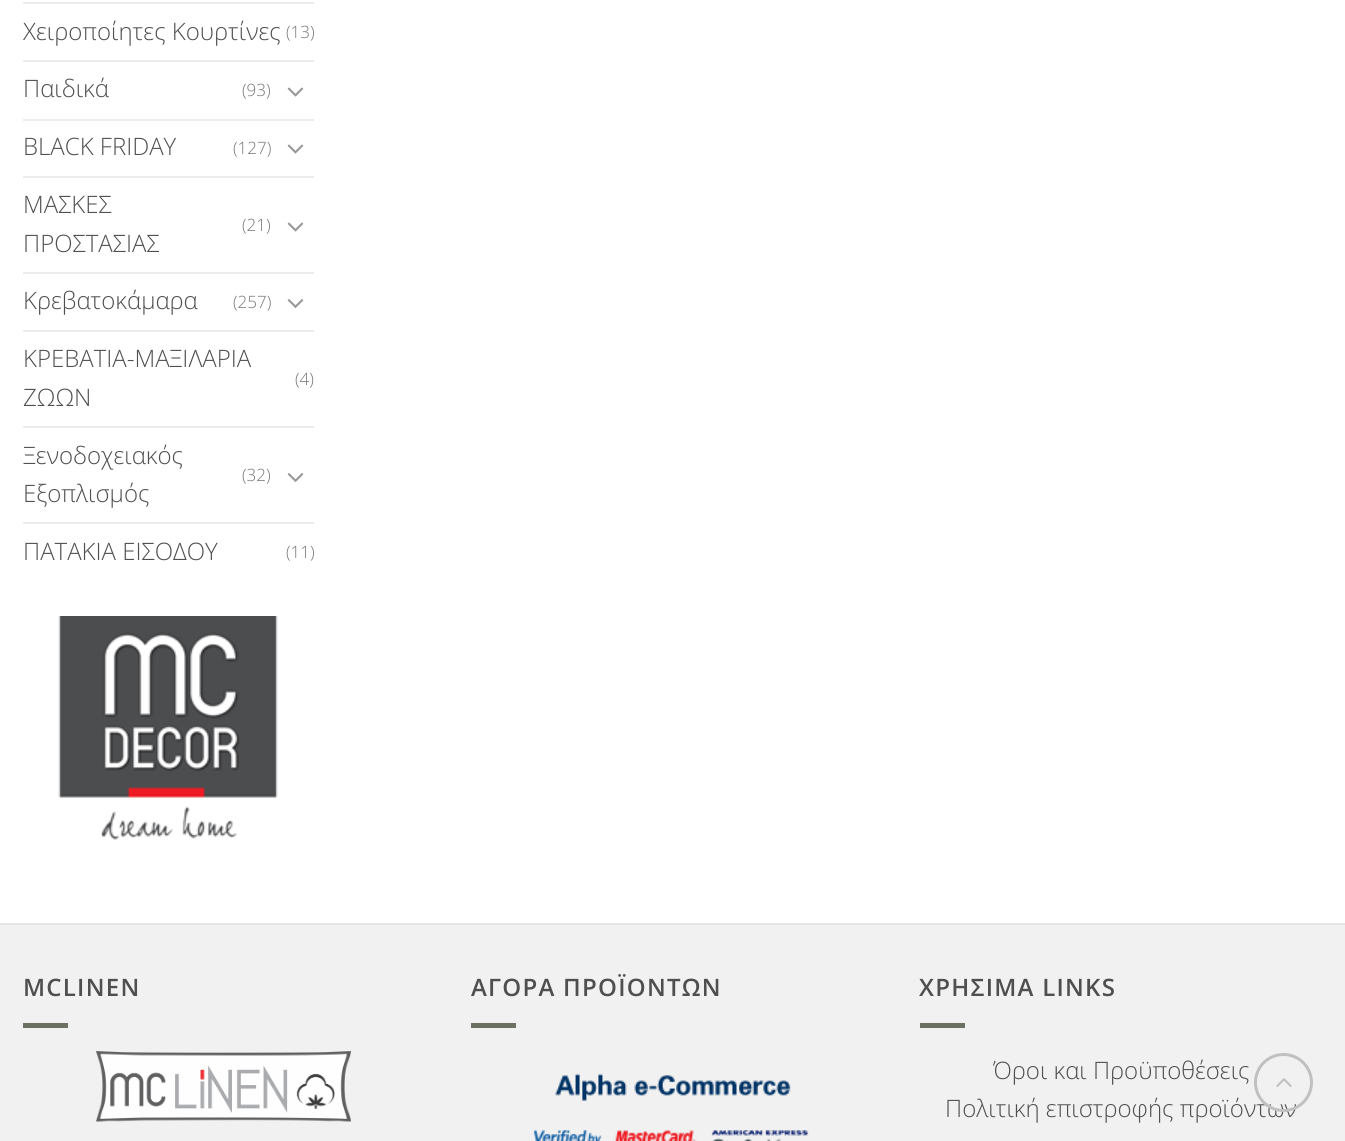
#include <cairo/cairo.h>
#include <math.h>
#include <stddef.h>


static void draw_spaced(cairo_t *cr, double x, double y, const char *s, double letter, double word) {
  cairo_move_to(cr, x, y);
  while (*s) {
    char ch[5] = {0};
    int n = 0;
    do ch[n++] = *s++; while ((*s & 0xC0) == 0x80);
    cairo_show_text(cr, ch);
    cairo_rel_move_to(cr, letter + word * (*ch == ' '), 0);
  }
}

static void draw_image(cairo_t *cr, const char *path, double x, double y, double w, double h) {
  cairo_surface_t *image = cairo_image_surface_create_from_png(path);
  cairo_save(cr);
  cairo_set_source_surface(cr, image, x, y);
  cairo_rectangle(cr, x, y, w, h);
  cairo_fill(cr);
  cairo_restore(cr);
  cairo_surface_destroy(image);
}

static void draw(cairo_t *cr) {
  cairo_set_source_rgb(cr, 1, 1, 1);
  cairo_paint(cr);
  cairo_set_source_rgb(cr, 236 / 255.0, 236 / 255.0, 236 / 255.0);
  cairo_rectangle(cr, 23, 2, 291, 2);
  cairo_fill(cr);
  cairo_rectangle(cr, 23, 60, 291, 2);
  cairo_fill(cr);
  draw_image(cr, "images/1.png", 287, 87, 17, 10);
  cairo_rectangle(cr, 23, 119, 291, 2);
  cairo_fill(cr);
  draw_image(cr, "images/1.png", 287, 144, 17, 10);
  cairo_rectangle(cr, 23, 176, 291, 2);
  cairo_fill(cr);
  draw_image(cr, "images/1.png", 287, 222, 17, 10);
  cairo_rectangle(cr, 23, 272, 291, 2);
  cairo_fill(cr);
  draw_image(cr, "images/2.png", 287, 299, 17, 9);
  cairo_rectangle(cr, 23, 330, 291, 2);
  cairo_fill(cr);
  cairo_rectangle(cr, 23, 426, 291, 2);
  cairo_fill(cr);
  draw_image(cr, "images/2.png", 287, 473, 17, 9);
  cairo_rectangle(cr, 23, 522, 291, 2);
  cairo_fill(cr);
  draw_image(cr, "images/3.png", 58, 616, 220, 224);
  cairo_set_source_rgb(cr, 241 / 255.0, 241 / 255.0, 241 / 255.0);
  cairo_rectangle(cr, 0, 925, 1345, 216);
  cairo_fill(cr);
  cairo_set_source_rgb(cr, 229 / 255.0, 229 / 255.0, 229 / 255.0);
  cairo_rectangle(cr, 0, 923, 1345, 2);
  cairo_fill(cr);
  cairo_set_source_rgb(cr, 107 / 255.0, 114 / 255.0, 98 / 255.0);
  cairo_rectangle(cr, 23, 1023, 45, 5);
  cairo_fill(cr);
  draw_image(cr, "images/4.png", 96, 1051, 255, 71);
  cairo_rectangle(cr, 471, 1023, 45, 5);
  cairo_fill(cr);
  draw_image(cr, "images/5.png", 533, 1073, 276, 68);
  cairo_rectangle(cr, 920, 1023, 45, 5);
  cairo_fill(cr);
  cairo_select_font_face(cr, "Open Sans Light", CAIRO_FONT_SLANT_NORMAL, CAIRO_FONT_WEIGHT_NORMAL);
  cairo_set_font_size(cr, 24);
  cairo_set_source_rgb(cr, 79 / 255.0, 79 / 255.0, 79 / 255.0);
  cairo_move_to(cr, 23, 40);
  cairo_show_text(cr, "Χειροποίητες Κουρτίνες");
  cairo_set_font_size(cr, 17);
  cairo_set_source_rgb(cr, 118 / 255.0, 118 / 255.0, 118 / 255.0);
  cairo_move_to(cr, 286, 38);
  cairo_show_text(cr, "(13)");
  cairo_set_font_size(cr, 24);
  cairo_set_source_rgb(cr, 79 / 255.0, 79 / 255.0, 79 / 255.0);
  cairo_move_to(cr, 23, 97);
  cairo_show_text(cr, "Παιδικά");
  cairo_set_font_size(cr, 17);
  cairo_set_source_rgb(cr, 118 / 255.0, 118 / 255.0, 118 / 255.0);
  cairo_move_to(cr, 242, 96);
  cairo_show_text(cr, "(93)");
  cairo_set_font_size(cr, 24);
  cairo_set_source_rgb(cr, 79 / 255.0, 79 / 255.0, 79 / 255.0);
  cairo_move_to(cr, 23, 155);
  cairo_show_text(cr, "BLACK FRIDAY");
  cairo_set_font_size(cr, 17);
  cairo_set_source_rgb(cr, 118 / 255.0, 118 / 255.0, 118 / 255.0);
  cairo_move_to(cr, 233, 154);
  cairo_show_text(cr, "(127)");
  cairo_set_font_size(cr, 24);
  cairo_set_source_rgb(cr, 79 / 255.0, 79 / 255.0, 79 / 255.0);
  cairo_move_to(cr, 23, 213);
  cairo_show_text(cr, "ΜΑΣΚΕΣ");
  cairo_move_to(cr, 23, 252);
  cairo_show_text(cr, "ΠΡΟΣΤΑΣΙΑΣ");
  cairo_set_font_size(cr, 17);
  cairo_set_source_rgb(cr, 118 / 255.0, 118 / 255.0, 118 / 255.0);
  cairo_move_to(cr, 242, 231);
  cairo_show_text(cr, "(21)");
  cairo_set_font_size(cr, 24);
  cairo_set_source_rgb(cr, 79 / 255.0, 79 / 255.0, 79 / 255.0);
  cairo_move_to(cr, 23, 309);
  cairo_show_text(cr, "Κρεβατοκάμαρα");
  cairo_set_font_size(cr, 17);
  cairo_set_source_rgb(cr, 118 / 255.0, 118 / 255.0, 118 / 255.0);
  cairo_move_to(cr, 233, 308);
  cairo_show_text(cr, "(257)");
  cairo_set_font_size(cr, 24);
  cairo_set_source_rgb(cr, 79 / 255.0, 79 / 255.0, 79 / 255.0);
  cairo_move_to(cr, 23, 367);
  cairo_show_text(cr, "ΚΡΕΒΑΤΙΑ-ΜΑΞΙΛΑΡΙΑ");
  cairo_move_to(cr, 23, 406);
  cairo_show_text(cr, "ΖΩΩΝ");
  cairo_set_font_size(cr, 17);
  cairo_set_source_rgb(cr, 118 / 255.0, 118 / 255.0, 118 / 255.0);
  cairo_move_to(cr, 295, 385);
  cairo_show_text(cr, "(4)");
  cairo_set_font_size(cr, 24);
  cairo_set_source_rgb(cr, 79 / 255.0, 79 / 255.0, 79 / 255.0);
  cairo_move_to(cr, 23, 464);
  cairo_show_text(cr, "Ξενοδοχειακός");
  cairo_move_to(cr, 23, 502);
  cairo_show_text(cr, "Εξοπλισμός");
  cairo_set_font_size(cr, 17);
  cairo_set_source_rgb(cr, 118 / 255.0, 118 / 255.0, 118 / 255.0);
  cairo_move_to(cr, 242, 481);
  cairo_show_text(cr, "(32)");
  cairo_set_font_size(cr, 24);
  cairo_set_source_rgb(cr, 79 / 255.0, 79 / 255.0, 79 / 255.0);
  cairo_move_to(cr, 23, 560);
  cairo_show_text(cr, "ΠΑΤΑΚΙΑ ΕΙΣΟΔΟΥ");
  cairo_set_font_size(cr, 17);
  cairo_set_source_rgb(cr, 118 / 255.0, 118 / 255.0, 118 / 255.0);
  cairo_move_to(cr, 286, 558);
  cairo_show_text(cr, "(11)");
  cairo_select_font_face(cr, "Open Sans SemiBold", CAIRO_FONT_SLANT_NORMAL, CAIRO_FONT_WEIGHT_NORMAL);
  cairo_set_font_size(cr, 24);
  cairo_set_source_rgb(cr, 79 / 255.0, 79 / 255.0, 79 / 255.0);
  draw_spaced(cr, 23, 996, "MCLINEN", 1.25, 0);
  draw_spaced(cr, 471, 996, "ΑΓΟΡΑ ΠΡΟΪΟΝΤΩΝ", 1.25, 0);
  draw_spaced(cr, 919, 996, "ΧΡΗΣΙΜΑ LINKS", 1.25, 0);
  cairo_select_font_face(cr, "Open Sans Light", CAIRO_FONT_SLANT_NORMAL, CAIRO_FONT_WEIGHT_NORMAL);
  cairo_move_to(cr, 993, 1079);
  cairo_show_text(cr, "Όροι και Προϋποθέσεις");
  cairo_move_to(cr, 945, 1117);
  cairo_show_text(cr, "Πολιτική επιστροφής προϊόντων");
  cairo_new_path(cr);
  cairo_arc(cr, 1283.5, 1082.5, 28, 0, 2 * M_PI);
  cairo_set_source_rgb(cr, 192 / 255.0, 192 / 255.0, 192 / 255.0);
  cairo_set_line_width(cr, 3);
  cairo_stroke(cr);
  draw_image(cr, "images/6.png", 1276, 1078, 16, 9);
}

int main(void) {
  cairo_surface_t *surface = cairo_image_surface_create(CAIRO_FORMAT_RGB24, 1345, 1141);
  cairo_t *cr = cairo_create(surface);
  cairo_font_options_t *options = cairo_font_options_create();
  cairo_font_options_set_hint_metrics(options, CAIRO_HINT_METRICS_OFF);
  cairo_font_options_set_hint_style(options, CAIRO_HINT_STYLE_NONE);
  cairo_set_font_options(cr, options);
  cairo_set_miter_limit(cr, 4);
  draw(cr);
  cairo_surface_write_to_png(surface, "out.png");
  cairo_font_options_destroy(options);
  cairo_destroy(cr);
  cairo_surface_destroy(surface);
  return 0;
}
